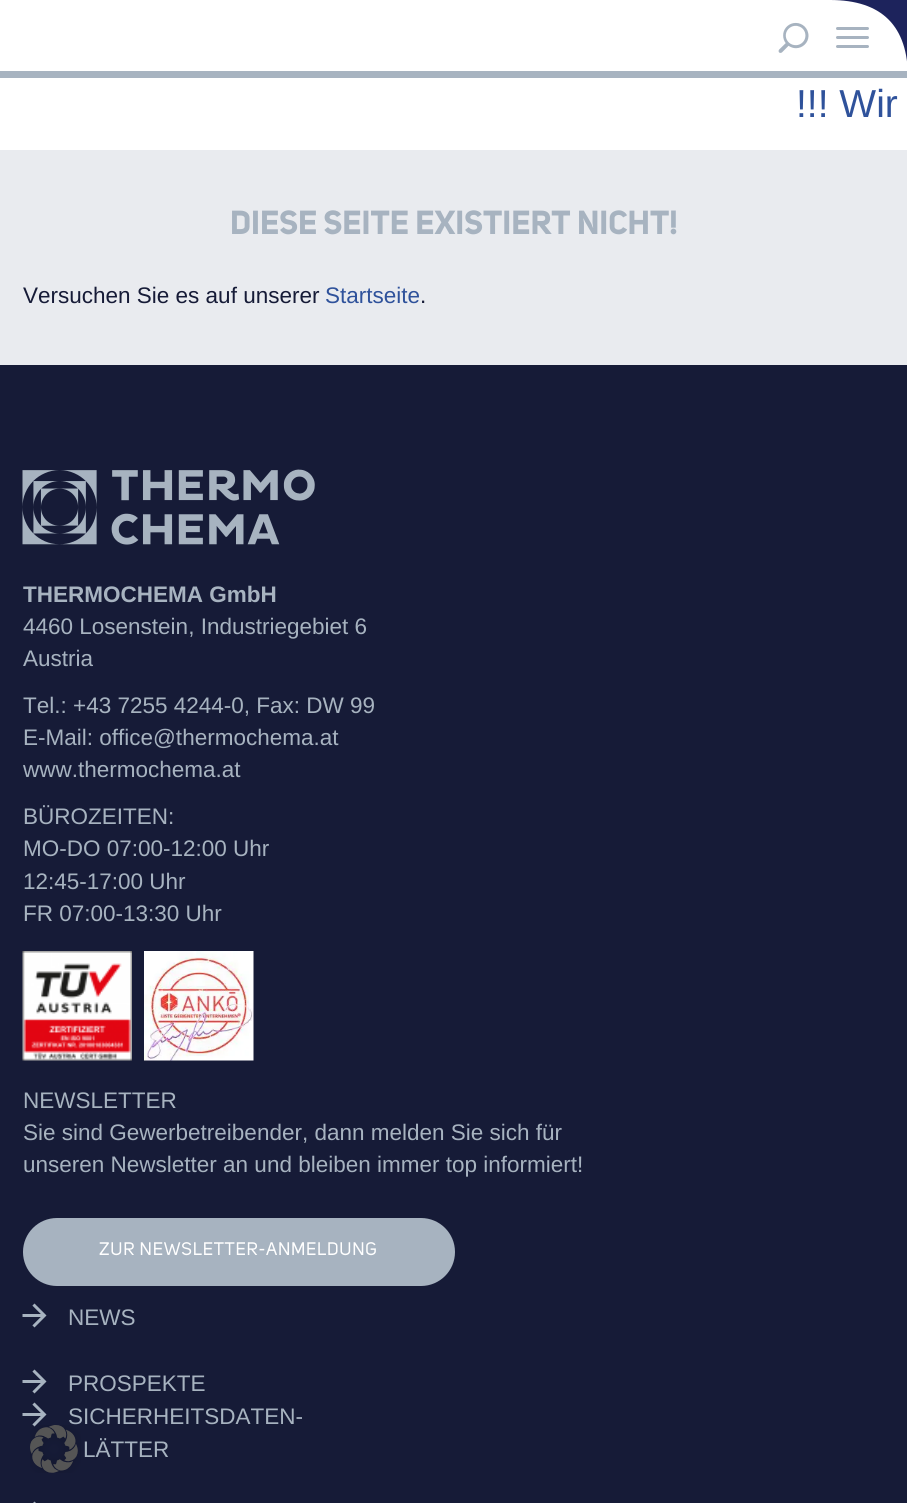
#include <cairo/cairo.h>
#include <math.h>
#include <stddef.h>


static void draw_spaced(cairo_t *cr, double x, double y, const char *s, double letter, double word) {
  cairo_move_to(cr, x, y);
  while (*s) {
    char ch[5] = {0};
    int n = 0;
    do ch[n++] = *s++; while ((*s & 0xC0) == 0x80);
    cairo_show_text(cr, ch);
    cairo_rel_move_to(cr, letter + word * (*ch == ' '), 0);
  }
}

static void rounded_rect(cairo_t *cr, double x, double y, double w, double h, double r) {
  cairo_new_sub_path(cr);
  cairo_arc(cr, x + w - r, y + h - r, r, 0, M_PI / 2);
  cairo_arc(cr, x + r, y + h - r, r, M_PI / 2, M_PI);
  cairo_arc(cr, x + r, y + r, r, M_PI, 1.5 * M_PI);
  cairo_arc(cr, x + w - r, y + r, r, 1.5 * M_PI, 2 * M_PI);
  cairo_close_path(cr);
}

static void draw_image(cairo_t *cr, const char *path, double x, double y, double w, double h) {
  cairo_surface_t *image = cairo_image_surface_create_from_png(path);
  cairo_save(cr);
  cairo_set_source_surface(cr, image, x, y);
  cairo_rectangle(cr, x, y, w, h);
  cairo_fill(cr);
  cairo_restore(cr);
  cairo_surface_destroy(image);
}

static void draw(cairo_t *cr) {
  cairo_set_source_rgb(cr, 1, 1, 1);
  cairo_paint(cr);
  draw_image(cr, "images/1.png", 778, 22, 31, 31);
  cairo_set_source_rgb(cr, 29 / 255.0, 35 / 255.0, 92 / 255.0);
  cairo_new_path(cr);
  cairo_move_to(cr, 830, 0);
  cairo_line_to(cr, 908, 0);
  cairo_line_to(cr, 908, 78);
  cairo_curve_to(cr, 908, 26, 882, 0, 830, 0);
  cairo_fill(cr);
  cairo_set_source_rgb(cr, 167 / 255.0, 179 / 255.0, 192 / 255.0);
  rounded_rect(cr, 836, 27, 33, 3, 1.5);
  cairo_fill(cr);
  rounded_rect(cr, 836, 36, 33, 3, 1.5);
  cairo_fill(cr);
  rounded_rect(cr, 836, 45, 33, 3, 1.5);
  cairo_fill(cr);
  cairo_rectangle(cr, 0, 71, 907, 7);
  cairo_fill(cr);
  cairo_set_source_rgb(cr, 233 / 255.0, 235 / 255.0, 239 / 255.0);
  cairo_rectangle(cr, 0, 150, 907, 215);
  cairo_fill(cr);
  cairo_set_source_rgb(cr, 22 / 255.0, 27 / 255.0, 55 / 255.0);
  cairo_rectangle(cr, 0, 365, 907, 1138);
  cairo_fill(cr);
  draw_image(cr, "images/2.png", 22, 469, 293, 76);
  draw_image(cr, "images/3.png", 22, 951, 110, 110);
  draw_image(cr, "images/4.png", 144, 951, 110, 110);
  cairo_set_source_rgb(cr, 167 / 255.0, 179 / 255.0, 192 / 255.0);
  rounded_rect(cr, 23, 1218, 432, 68, 34);
  cairo_fill(cr);
  draw_image(cr, "images/5.png", 22, 1303, 25, 25);
  draw_image(cr, "images/5.png", 22, 1369, 25, 25);
  draw_image(cr, "images/5.png", 22, 1402, 25, 25);
  draw_image(cr, "images/6.png", 33, 1501, 3, 2);
  draw_image(cr, "images/7.png", 30, 1425, 51, 48);
  cairo_select_font_face(cr, "Liberation Sans", CAIRO_FONT_SLANT_NORMAL, CAIRO_FONT_WEIGHT_NORMAL);
  cairo_set_font_size(cr, 39);
  cairo_set_source_rgb(cr, 47 / 255.0, 82 / 255.0, 155 / 255.0);
  cairo_move_to(cr, 796, 117);
  cairo_show_text(cr, "!!! Wir");
  cairo_select_font_face(cr, "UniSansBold", CAIRO_FONT_SLANT_NORMAL, CAIRO_FONT_WEIGHT_NORMAL);
  cairo_set_font_size(cr, 33);
  cairo_set_source_rgb(cr, 167 / 255.0, 179 / 255.0, 192 / 255.0);
  cairo_move_to(cr, 230, 234);
  cairo_show_text(cr, "DIESE SEITE EXISTIERT NICHT!");
  cairo_select_font_face(cr, "Liberation Sans", CAIRO_FONT_SLANT_NORMAL, CAIRO_FONT_WEIGHT_NORMAL);
  cairo_set_font_size(cr, 22.5);
  cairo_set_source_rgb(cr, 22 / 255.0, 27 / 255.0, 55 / 255.0);
  cairo_move_to(cr, 23, 303);
  cairo_show_text(cr, "Versuchen Sie es auf unserer");
  cairo_set_source_rgb(cr, 47 / 255.0, 82 / 255.0, 155 / 255.0);
  cairo_move_to(cr, 325, 303);
  cairo_show_text(cr, "Startseite");
  cairo_set_source_rgb(cr, 22 / 255.0, 27 / 255.0, 55 / 255.0);
  cairo_move_to(cr, 420, 303);
  cairo_show_text(cr, ".");
  cairo_select_font_face(cr, "Liberation Sans", CAIRO_FONT_SLANT_NORMAL, CAIRO_FONT_WEIGHT_BOLD);
  cairo_set_source_rgb(cr, 167 / 255.0, 179 / 255.0, 192 / 255.0);
  cairo_move_to(cr, 23, 602);
  cairo_show_text(cr, "THERMOCHEMA GmbH");
  cairo_select_font_face(cr, "Liberation Sans", CAIRO_FONT_SLANT_NORMAL, CAIRO_FONT_WEIGHT_NORMAL);
  cairo_move_to(cr, 23, 634);
  cairo_show_text(cr, "4460 Losenstein, Industriegebiet 6");
  cairo_move_to(cr, 23, 666);
  cairo_show_text(cr, "Austria");
  cairo_move_to(cr, 23, 713);
  cairo_show_text(cr, "Tel.: +43 7255 4244-0, Fax: DW 99");
  cairo_move_to(cr, 23, 745);
  cairo_show_text(cr, "E-Mail: office@thermochema.at");
  cairo_move_to(cr, 23, 777);
  cairo_show_text(cr, "www.thermochema.at");
  cairo_move_to(cr, 23, 824);
  cairo_show_text(cr, "BÜROZEITEN:");
  cairo_move_to(cr, 23, 856);
  cairo_show_text(cr, "MO-DO 07:00-12:00 Uhr");
  cairo_move_to(cr, 23, 889);
  cairo_show_text(cr, "12:45-17:00 Uhr");
  cairo_move_to(cr, 23, 921);
  cairo_show_text(cr, "FR 07:00-13:30 Uhr");
  cairo_move_to(cr, 23, 1108);
  cairo_show_text(cr, "NEWSLETTER");
  cairo_move_to(cr, 23, 1140);
  cairo_show_text(cr, "Sie sind Gewerbetreibender, dann melden Sie sich für");
  cairo_move_to(cr, 23, 1172);
  cairo_show_text(cr, "unseren Newsletter an und bleiben immer top informiert!");
  cairo_select_font_face(cr, "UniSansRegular", CAIRO_FONT_SLANT_NORMAL, CAIRO_FONT_WEIGHT_NORMAL);
  cairo_set_font_size(cr, 18);
  cairo_set_source_rgb(cr, 1, 1, 1);
  draw_spaced(cr, 99, 1255, "ZUR NEWSLETTER-ANMELDUNG", 0.75, 0);
  cairo_select_font_face(cr, "Liberation Sans", CAIRO_FONT_SLANT_NORMAL, CAIRO_FONT_WEIGHT_NORMAL);
  cairo_set_font_size(cr, 22.5);
  cairo_set_source_rgb(cr, 167 / 255.0, 179 / 255.0, 192 / 255.0);
  cairo_move_to(cr, 68, 1325);
  cairo_show_text(cr, "NEWS");
  cairo_move_to(cr, 68, 1391);
  cairo_show_text(cr, "PROSPEKTE");
  cairo_move_to(cr, 68, 1424);
  cairo_show_text(cr, "SICHERHEITSDATEN-");
  cairo_move_to(cr, 83, 1457);
  cairo_show_text(cr, "LÄTTER");
}

int main(void) {
  cairo_surface_t *surface = cairo_image_surface_create(CAIRO_FORMAT_RGB24, 907, 1503);
  cairo_t *cr = cairo_create(surface);
  cairo_font_options_t *options = cairo_font_options_create();
  cairo_font_options_set_hint_metrics(options, CAIRO_HINT_METRICS_OFF);
  cairo_font_options_set_hint_style(options, CAIRO_HINT_STYLE_NONE);
  cairo_set_font_options(cr, options);
  cairo_set_miter_limit(cr, 4);
  draw(cr);
  cairo_surface_write_to_png(surface, "out.png");
  cairo_font_options_destroy(options);
  cairo_destroy(cr);
  cairo_surface_destroy(surface);
  return 0;
}
